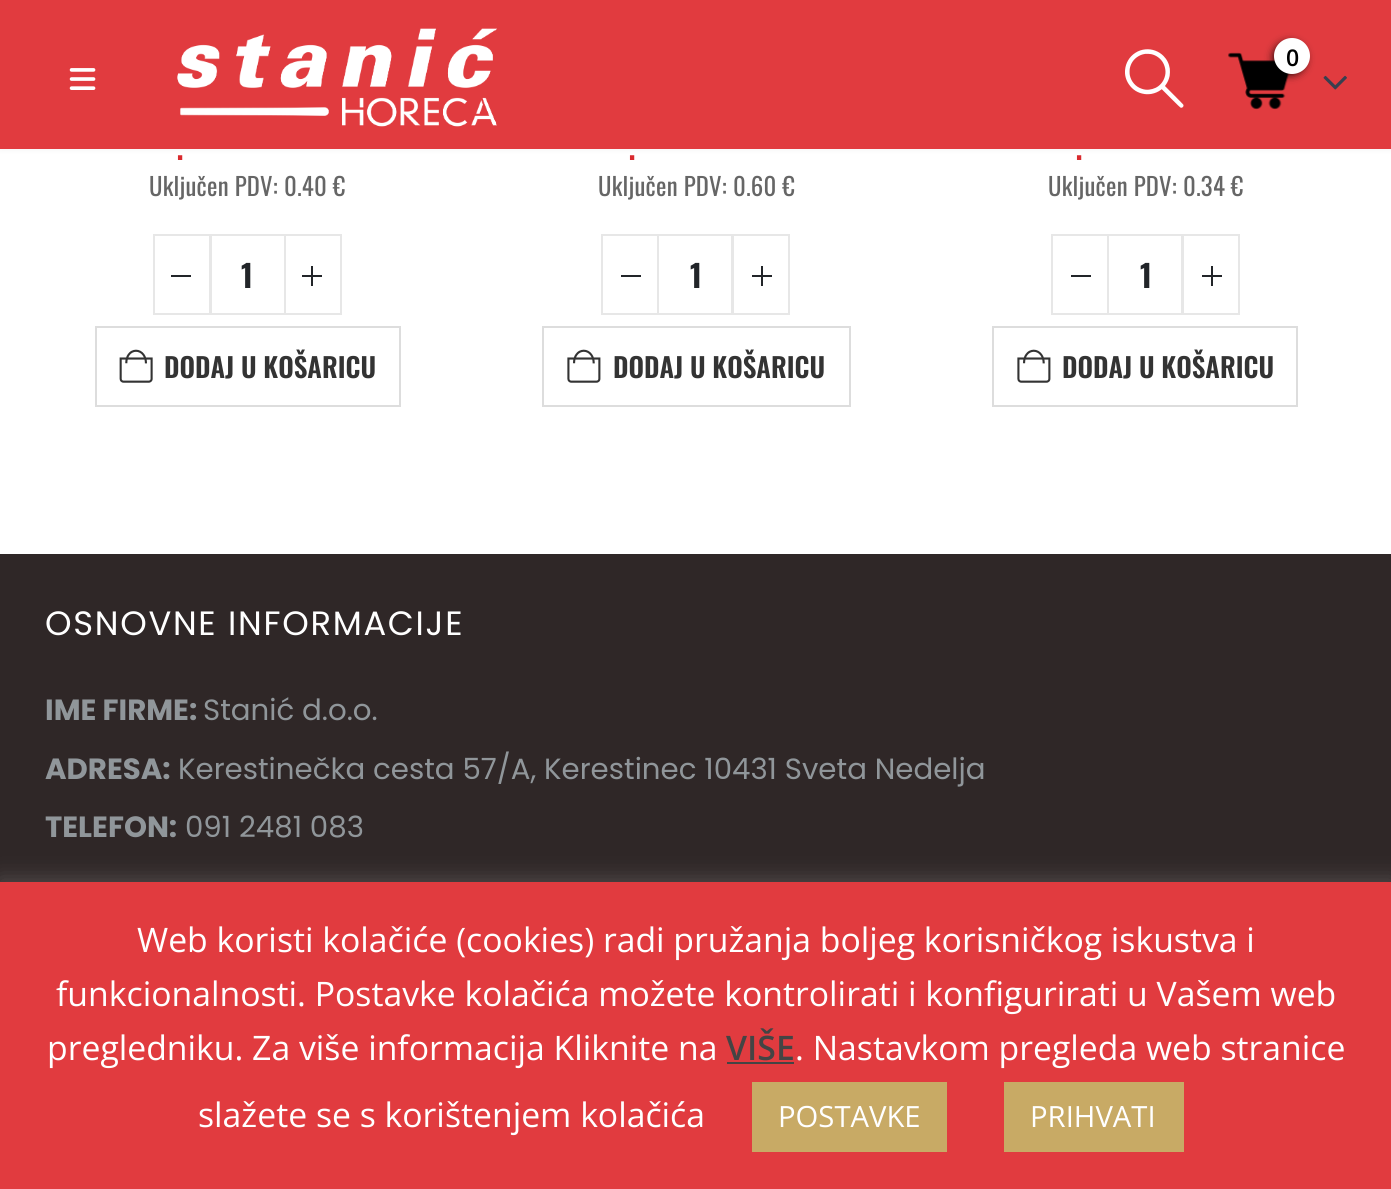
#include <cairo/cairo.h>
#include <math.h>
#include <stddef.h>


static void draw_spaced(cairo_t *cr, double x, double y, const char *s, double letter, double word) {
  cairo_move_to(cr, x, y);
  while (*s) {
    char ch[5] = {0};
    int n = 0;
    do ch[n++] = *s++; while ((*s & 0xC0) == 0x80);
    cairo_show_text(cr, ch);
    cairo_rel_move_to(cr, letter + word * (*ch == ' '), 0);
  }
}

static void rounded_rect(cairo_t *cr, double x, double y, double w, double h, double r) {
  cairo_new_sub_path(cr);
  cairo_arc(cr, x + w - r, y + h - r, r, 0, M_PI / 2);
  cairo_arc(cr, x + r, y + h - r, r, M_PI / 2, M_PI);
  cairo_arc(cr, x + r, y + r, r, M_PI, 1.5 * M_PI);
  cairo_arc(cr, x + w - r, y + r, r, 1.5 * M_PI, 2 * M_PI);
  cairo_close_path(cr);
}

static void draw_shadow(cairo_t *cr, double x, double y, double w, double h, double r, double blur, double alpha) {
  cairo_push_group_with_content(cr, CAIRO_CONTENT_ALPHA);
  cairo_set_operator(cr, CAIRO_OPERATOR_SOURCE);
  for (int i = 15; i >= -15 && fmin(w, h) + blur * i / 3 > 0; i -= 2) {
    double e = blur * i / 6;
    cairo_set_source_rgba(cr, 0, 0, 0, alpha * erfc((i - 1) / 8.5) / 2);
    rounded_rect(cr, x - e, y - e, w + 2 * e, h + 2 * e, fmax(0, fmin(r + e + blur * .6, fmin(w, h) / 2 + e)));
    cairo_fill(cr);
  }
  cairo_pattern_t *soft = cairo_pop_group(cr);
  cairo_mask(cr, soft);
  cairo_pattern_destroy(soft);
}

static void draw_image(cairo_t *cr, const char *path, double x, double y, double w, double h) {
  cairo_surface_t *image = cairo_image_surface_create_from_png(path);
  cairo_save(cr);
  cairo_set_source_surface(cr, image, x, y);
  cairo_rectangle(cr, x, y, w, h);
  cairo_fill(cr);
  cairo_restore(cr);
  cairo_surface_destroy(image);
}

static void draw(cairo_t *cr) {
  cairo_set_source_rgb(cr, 1, 1, 1);
  cairo_paint(cr);
  cairo_set_source_rgb(cr, 0, 0, 0);
  draw_shadow(cr, 0, 0, 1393, 149, 0, 3.5, 0.06);
  cairo_set_source_rgb(cr, 225 / 255.0, 59 / 255.0, 63 / 255.0);
  cairo_rectangle(cr, 0, 0, 1391, 149);
  cairo_fill(cr);
  draw_image(cr, "images/1.png", 69, 68, 27, 22);
  draw_image(cr, "images/2.png", 177, 28, 320, 99);
  draw_image(cr, "images/3.png", 1125, 49, 59, 59);
  draw_image(cr, "images/4.png", 1228, 52, 62, 58);
  cairo_set_source_rgb(cr, 0, 0, 0);
  draw_shadow(cr, 1274, 43, 31, 31, 15.5, 4.5, 1);
  cairo_set_source_rgb(cr, 1, 1, 1);
  cairo_arc(cr, 1292, 56, 18, 0, 2 * M_PI);
  cairo_fill(cr);
  draw_image(cr, "images/5.png", 1323, 75, 24, 15);
  cairo_rectangle(cr, 210, 235, 75, 79);
  cairo_set_source_rgb(cr, 231 / 255.0, 231 / 255.0, 231 / 255.0);
  cairo_stroke(cr);
  cairo_rectangle(cr, 154, 235, 57, 79);
  cairo_stroke(cr);
  cairo_set_source_rgb(cr, 34 / 255.0, 37 / 255.0, 41 / 255.0);
  cairo_rectangle(cr, 171, 275, 20, 2);
  cairo_fill(cr);
  cairo_rectangle(cr, 285, 235, 56, 79);
  cairo_set_source_rgb(cr, 231 / 255.0, 231 / 255.0, 231 / 255.0);
  cairo_stroke(cr);
  cairo_set_source_rgb(cr, 34 / 255.0, 37 / 255.0, 41 / 255.0);
  cairo_rectangle(cr, 302, 275, 20, 2);
  cairo_fill(cr);
  cairo_rectangle(cr, 311, 266, 2, 20);
  cairo_fill(cr);
  cairo_rectangle(cr, 96, 327, 304, 79);
  cairo_set_source_rgb(cr, 221 / 255.0, 221 / 255.0, 221 / 255.0);
  cairo_stroke(cr);
  draw_image(cr, "images/6.png", 119, 349, 34, 34);
  cairo_rectangle(cr, 658, 235, 75, 79);
  cairo_set_source_rgb(cr, 231 / 255.0, 231 / 255.0, 231 / 255.0);
  cairo_stroke(cr);
  cairo_rectangle(cr, 602, 235, 56, 79);
  cairo_stroke(cr);
  cairo_set_source_rgb(cr, 34 / 255.0, 37 / 255.0, 41 / 255.0);
  cairo_rectangle(cr, 621, 275, 20, 2);
  cairo_fill(cr);
  cairo_rectangle(cr, 732, 235, 57, 79);
  cairo_set_source_rgb(cr, 231 / 255.0, 231 / 255.0, 231 / 255.0);
  cairo_stroke(cr);
  cairo_set_source_rgb(cr, 34 / 255.0, 37 / 255.0, 41 / 255.0);
  cairo_rectangle(cr, 752, 275, 20, 2);
  cairo_fill(cr);
  cairo_rectangle(cr, 761, 266, 2, 20);
  cairo_fill(cr);
  cairo_rectangle(cr, 543, 327, 307, 79);
  cairo_set_source_rgb(cr, 221 / 255.0, 221 / 255.0, 221 / 255.0);
  cairo_stroke(cr);
  draw_image(cr, "images/7.png", 567, 349, 34, 34);
  cairo_rectangle(cr, 1108, 235, 75, 79);
  cairo_set_source_rgb(cr, 231 / 255.0, 231 / 255.0, 231 / 255.0);
  cairo_stroke(cr);
  cairo_rectangle(cr, 1052, 235, 56, 79);
  cairo_stroke(cr);
  cairo_set_source_rgb(cr, 34 / 255.0, 37 / 255.0, 41 / 255.0);
  cairo_rectangle(cr, 1071, 275, 20, 2);
  cairo_fill(cr);
  cairo_rectangle(cr, 1182, 235, 57, 79);
  cairo_set_source_rgb(cr, 231 / 255.0, 231 / 255.0, 231 / 255.0);
  cairo_stroke(cr);
  cairo_set_source_rgb(cr, 34 / 255.0, 37 / 255.0, 41 / 255.0);
  cairo_rectangle(cr, 1202, 275, 20, 2);
  cairo_fill(cr);
  cairo_rectangle(cr, 1211, 266, 2, 20);
  cairo_fill(cr);
  cairo_rectangle(cr, 993, 327, 304, 79);
  cairo_set_source_rgb(cr, 221 / 255.0, 221 / 255.0, 221 / 255.0);
  cairo_stroke(cr);
  draw_image(cr, "images/7.png", 1017, 349, 34, 34);
  cairo_set_source_rgb(cr, 47 / 255.0, 39 / 255.0, 39 / 255.0);
  cairo_rectangle(cr, 0, 554, 1391, 328);
  cairo_fill(cr);
  cairo_set_source_rgb(cr, 172 / 255.0, 171 / 255.0, 171 / 255.0);
  draw_shadow(cr, 0, 880, 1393, 308, 0, 11, 0.3);
  cairo_set_source_rgb(cr, 225 / 255.0, 59 / 255.0, 63 / 255.0);
  cairo_rectangle(cr, 0, 882, 1391, 307);
  cairo_fill(cr);
  cairo_set_source_rgb(cr, 68 / 255.0, 68 / 255.0, 68 / 255.0);
  cairo_rectangle(cr, 727, 1062, 67, 2);
  cairo_fill(cr);
  cairo_set_source_rgb(cr, 200 / 255.0, 170 / 255.0, 101 / 255.0);
  cairo_rectangle(cr, 752, 1082, 195, 70);
  cairo_fill(cr);
  cairo_rectangle(cr, 1004, 1082, 180, 70);
  cairo_fill(cr);
  cairo_select_font_face(cr, "Open Sans SemiBold", CAIRO_FONT_SLANT_NORMAL, CAIRO_FONT_WEIGHT_NORMAL);
  cairo_set_font_size(cr, 23);
  cairo_set_source_rgb(cr, 0, 0, 0);
  cairo_move_to(cr, 1286, 66);
  cairo_show_text(cr, "0");
  cairo_select_font_face(cr, "Oswald", CAIRO_FONT_SLANT_NORMAL, CAIRO_FONT_WEIGHT_NORMAL);
  cairo_set_font_size(cr, 40);
  cairo_set_source_rgb(cr, 217 / 255.0, 42 / 255.0, 46 / 255.0);
  draw_spaced(cr, 176, 160, ".", 0.25, 0);
  cairo_set_font_size(cr, 24.75);
  cairo_set_source_rgb(cr, 102 / 255.0, 102 / 255.0, 102 / 255.0);
  draw_spaced(cr, 149, 196, "Uključen PDV: 0.40 €", 0.25, 0);
  cairo_select_font_face(cr, "Oswald", CAIRO_FONT_SLANT_NORMAL, CAIRO_FONT_WEIGHT_BOLD);
  cairo_set_font_size(cr, 31);
  cairo_set_source_rgb(cr, 34 / 255.0, 37 / 255.0, 41 / 255.0);
  cairo_move_to(cr, 241, 288);
  cairo_show_text(cr, "1");
  cairo_select_font_face(cr, "Oswald SemiBold", CAIRO_FONT_SLANT_NORMAL, CAIRO_FONT_WEIGHT_NORMAL);
  cairo_set_font_size(cr, 27);
  cairo_set_source_rgb(cr, 51 / 255.0, 51 / 255.0, 51 / 255.0);
  cairo_move_to(cr, 164, 378);
  cairo_show_text(cr, "DODAJ U KOŠARICU");
  cairo_select_font_face(cr, "Oswald", CAIRO_FONT_SLANT_NORMAL, CAIRO_FONT_WEIGHT_NORMAL);
  cairo_set_font_size(cr, 40);
  cairo_set_source_rgb(cr, 217 / 255.0, 42 / 255.0, 46 / 255.0);
  draw_spaced(cr, 628, 160, ".", 0.25, 0);
  cairo_set_font_size(cr, 24.75);
  cairo_set_source_rgb(cr, 102 / 255.0, 102 / 255.0, 102 / 255.0);
  draw_spaced(cr, 598, 196, "Uključen PDV: 0.60 €", 0.25, 0);
  cairo_select_font_face(cr, "Oswald", CAIRO_FONT_SLANT_NORMAL, CAIRO_FONT_WEIGHT_BOLD);
  cairo_set_font_size(cr, 31);
  cairo_set_source_rgb(cr, 34 / 255.0, 37 / 255.0, 41 / 255.0);
  cairo_move_to(cr, 690, 288);
  cairo_show_text(cr, "1");
  cairo_select_font_face(cr, "Oswald SemiBold", CAIRO_FONT_SLANT_NORMAL, CAIRO_FONT_WEIGHT_NORMAL);
  cairo_set_font_size(cr, 27);
  cairo_set_source_rgb(cr, 51 / 255.0, 51 / 255.0, 51 / 255.0);
  cairo_move_to(cr, 613, 378);
  cairo_show_text(cr, "DODAJ U KOŠARICU");
  cairo_select_font_face(cr, "Oswald", CAIRO_FONT_SLANT_NORMAL, CAIRO_FONT_WEIGHT_NORMAL);
  cairo_set_font_size(cr, 40);
  cairo_set_source_rgb(cr, 217 / 255.0, 42 / 255.0, 46 / 255.0);
  draw_spaced(cr, 1075, 160, ".", 0.25, 0);
  cairo_set_font_size(cr, 24.75);
  cairo_set_source_rgb(cr, 102 / 255.0, 102 / 255.0, 102 / 255.0);
  draw_spaced(cr, 1048, 196, "Uključen PDV: 0.34 €", 0.25, 0);
  cairo_select_font_face(cr, "Oswald", CAIRO_FONT_SLANT_NORMAL, CAIRO_FONT_WEIGHT_BOLD);
  cairo_set_font_size(cr, 31);
  cairo_set_source_rgb(cr, 34 / 255.0, 37 / 255.0, 41 / 255.0);
  cairo_move_to(cr, 1140, 288);
  cairo_show_text(cr, "1");
  cairo_select_font_face(cr, "Oswald SemiBold", CAIRO_FONT_SLANT_NORMAL, CAIRO_FONT_WEIGHT_NORMAL);
  cairo_set_font_size(cr, 27);
  cairo_set_source_rgb(cr, 51 / 255.0, 51 / 255.0, 51 / 255.0);
  cairo_move_to(cr, 1062, 378);
  cairo_show_text(cr, "DODAJ U KOŠARICU");
  cairo_select_font_face(cr, "Poppins", CAIRO_FONT_SLANT_NORMAL, CAIRO_FONT_WEIGHT_NORMAL);
  cairo_set_font_size(cr, 33.75);
  cairo_set_source_rgb(cr, 1, 1, 1);
  draw_spaced(cr, 45, 635, "OSNOVNE INFORMACIJE", 1.7, 0);
  cairo_select_font_face(cr, "Poppins", CAIRO_FONT_SLANT_NORMAL, CAIRO_FONT_WEIGHT_BOLD);
  cairo_set_font_size(cr, 29.25);
  cairo_set_source_rgb(cr, 144 / 255.0, 150 / 255.0, 154 / 255.0);
  cairo_move_to(cr, 45, 720);
  cairo_show_text(cr, "IME FIRME:");
  cairo_select_font_face(cr, "Poppins", CAIRO_FONT_SLANT_NORMAL, CAIRO_FONT_WEIGHT_NORMAL);
  cairo_move_to(cr, 203, 720);
  cairo_show_text(cr, "Stanić d.o.o.");
  cairo_select_font_face(cr, "Poppins", CAIRO_FONT_SLANT_NORMAL, CAIRO_FONT_WEIGHT_BOLD);
  cairo_move_to(cr, 45, 779);
  cairo_show_text(cr, "ADRESA:");
  cairo_select_font_face(cr, "Poppins", CAIRO_FONT_SLANT_NORMAL, CAIRO_FONT_WEIGHT_NORMAL);
  cairo_move_to(cr, 178, 779);
  cairo_show_text(cr, "Kerestinečka cesta 57/A, Kerestinec 10431 Sveta Nedelja");
  cairo_select_font_face(cr, "Poppins", CAIRO_FONT_SLANT_NORMAL, CAIRO_FONT_WEIGHT_BOLD);
  cairo_move_to(cr, 45, 837);
  cairo_show_text(cr, "TELEFON:");
  cairo_select_font_face(cr, "Poppins", CAIRO_FONT_SLANT_NORMAL, CAIRO_FONT_WEIGHT_NORMAL);
  cairo_move_to(cr, 185, 837);
  cairo_show_text(cr, "091 2481 083");
  cairo_select_font_face(cr, "Open Sans", CAIRO_FONT_SLANT_NORMAL, CAIRO_FONT_WEIGHT_NORMAL);
  cairo_set_font_size(cr, 33.75);
  cairo_set_source_rgb(cr, 1, 1, 1);
  cairo_move_to(cr, 137, 952);
  cairo_show_text(cr, "Web koristi kolačiće (cookies) radi pružanja boljeg korisničkog iskustva i");
  cairo_move_to(cr, 56, 1006);
  cairo_show_text(cr, "funkcionalnosti. Postavke kolačića možete kontrolirati i konfigurirati u Vašem web");
  cairo_move_to(cr, 47, 1060);
  cairo_show_text(cr, "pregledniku. Za više informacija Kliknite na");
  cairo_select_font_face(cr, "Open Sans SemiBold", CAIRO_FONT_SLANT_NORMAL, CAIRO_FONT_WEIGHT_NORMAL);
  cairo_set_source_rgb(cr, 68 / 255.0, 68 / 255.0, 68 / 255.0);
  cairo_move_to(cr, 726, 1060);
  cairo_show_text(cr, "VIŠE");
  cairo_select_font_face(cr, "Open Sans", CAIRO_FONT_SLANT_NORMAL, CAIRO_FONT_WEIGHT_NORMAL);
  cairo_set_source_rgb(cr, 1, 1, 1);
  cairo_move_to(cr, 795, 1060);
  cairo_show_text(cr, ". Nastavkom pregleda web stranice");
  cairo_move_to(cr, 198, 1127);
  cairo_show_text(cr, "slažete se s korištenjem kolačića");
  cairo_set_font_size(cr, 29.25);
  cairo_move_to(cr, 778, 1127);
  cairo_show_text(cr, "POSTAVKE");
  cairo_move_to(cr, 1030, 1127);
  cairo_show_text(cr, "PRIHVATI");
}

int main(void) {
  cairo_surface_t *surface = cairo_image_surface_create(CAIRO_FORMAT_RGB24, 1391, 1189);
  cairo_t *cr = cairo_create(surface);
  cairo_font_options_t *options = cairo_font_options_create();
  cairo_font_options_set_hint_metrics(options, CAIRO_HINT_METRICS_OFF);
  cairo_font_options_set_hint_style(options, CAIRO_HINT_STYLE_NONE);
  cairo_set_font_options(cr, options);
  cairo_set_miter_limit(cr, 4);
  draw(cr);
  cairo_surface_write_to_png(surface, "out.png");
  cairo_font_options_destroy(options);
  cairo_destroy(cr);
  cairo_surface_destroy(surface);
  return 0;
}
